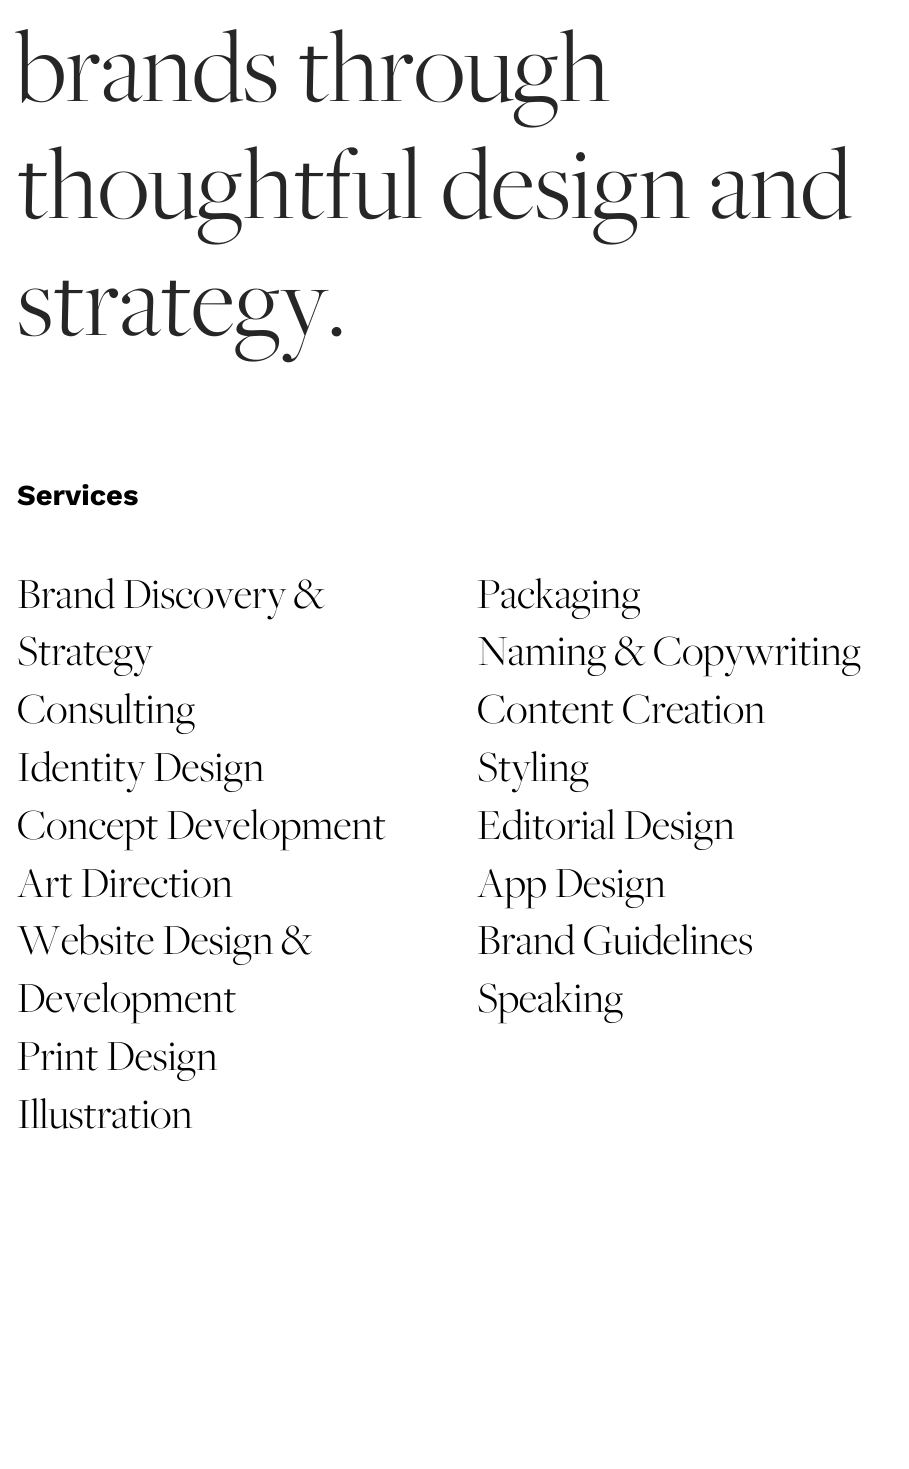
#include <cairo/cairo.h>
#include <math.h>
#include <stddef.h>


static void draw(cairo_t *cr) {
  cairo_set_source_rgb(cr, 1, 1, 1);
  cairo_paint(cr);
  cairo_select_font_face(cr, "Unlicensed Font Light", CAIRO_FONT_SLANT_NORMAL, CAIRO_FONT_WEIGHT_NORMAL);
  cairo_set_font_size(cr, 106.75);
  cairo_set_source_rgb(cr, 38 / 255.0, 38 / 255.0, 38 / 255.0);
  cairo_move_to(cr, 17, 101);
  cairo_show_text(cr, "brands through");
  cairo_move_to(cr, 17, 218);
  cairo_show_text(cr, "thoughtful design and");
  cairo_move_to(cr, 17, 335);
  cairo_show_text(cr, "strategy.");
  cairo_select_font_face(cr, "Work Sans", CAIRO_FONT_SLANT_NORMAL, CAIRO_FONT_WEIGHT_BOLD);
  cairo_set_font_size(cr, 29);
  cairo_set_source_rgb(cr, 0, 0, 0);
  cairo_move_to(cr, 17, 505);
  cairo_show_text(cr, "Services");
  cairo_select_font_face(cr, "Unlicensed Font Light", CAIRO_FONT_SLANT_NORMAL, CAIRO_FONT_WEIGHT_NORMAL);
  cairo_set_font_size(cr, 44.5);
  cairo_move_to(cr, 17, 608);
  cairo_show_text(cr, "Brand Discovery &");
  cairo_move_to(cr, 17, 665);
  cairo_show_text(cr, "Strategy");
  cairo_move_to(cr, 17, 723);
  cairo_show_text(cr, "Consulting");
  cairo_move_to(cr, 17, 781);
  cairo_show_text(cr, "Identity Design");
  cairo_move_to(cr, 17, 839);
  cairo_show_text(cr, "Concept Development");
  cairo_move_to(cr, 17, 897);
  cairo_show_text(cr, "Art Direction");
  cairo_move_to(cr, 17, 954);
  cairo_show_text(cr, "Website Design &");
  cairo_move_to(cr, 17, 1012);
  cairo_show_text(cr, "Development");
  cairo_move_to(cr, 17, 1070);
  cairo_show_text(cr, "Print Design");
  cairo_move_to(cr, 17, 1128);
  cairo_show_text(cr, "Illustration");
  cairo_move_to(cr, 477, 608);
  cairo_show_text(cr, "Packaging");
  cairo_move_to(cr, 477, 665);
  cairo_show_text(cr, "Naming & Copywriting");
  cairo_move_to(cr, 477, 723);
  cairo_show_text(cr, "Content Creation");
  cairo_move_to(cr, 477, 781);
  cairo_show_text(cr, "Styling");
  cairo_move_to(cr, 477, 839);
  cairo_show_text(cr, "Editorial Design");
  cairo_move_to(cr, 477, 897);
  cairo_show_text(cr, "App Design");
  cairo_move_to(cr, 477, 954);
  cairo_show_text(cr, "Brand Guidelines");
  cairo_move_to(cr, 477, 1012);
  cairo_show_text(cr, "Speaking");
}

int main(void) {
  cairo_surface_t *surface = cairo_image_surface_create(CAIRO_FORMAT_RGB24, 909, 1469);
  cairo_t *cr = cairo_create(surface);
  cairo_font_options_t *options = cairo_font_options_create();
  cairo_font_options_set_hint_metrics(options, CAIRO_HINT_METRICS_OFF);
  cairo_font_options_set_hint_style(options, CAIRO_HINT_STYLE_NONE);
  cairo_set_font_options(cr, options);
  cairo_set_miter_limit(cr, 4);
  draw(cr);
  cairo_surface_write_to_png(surface, "out.png");
  cairo_font_options_destroy(options);
  cairo_destroy(cr);
  cairo_surface_destroy(surface);
  return 0;
}
